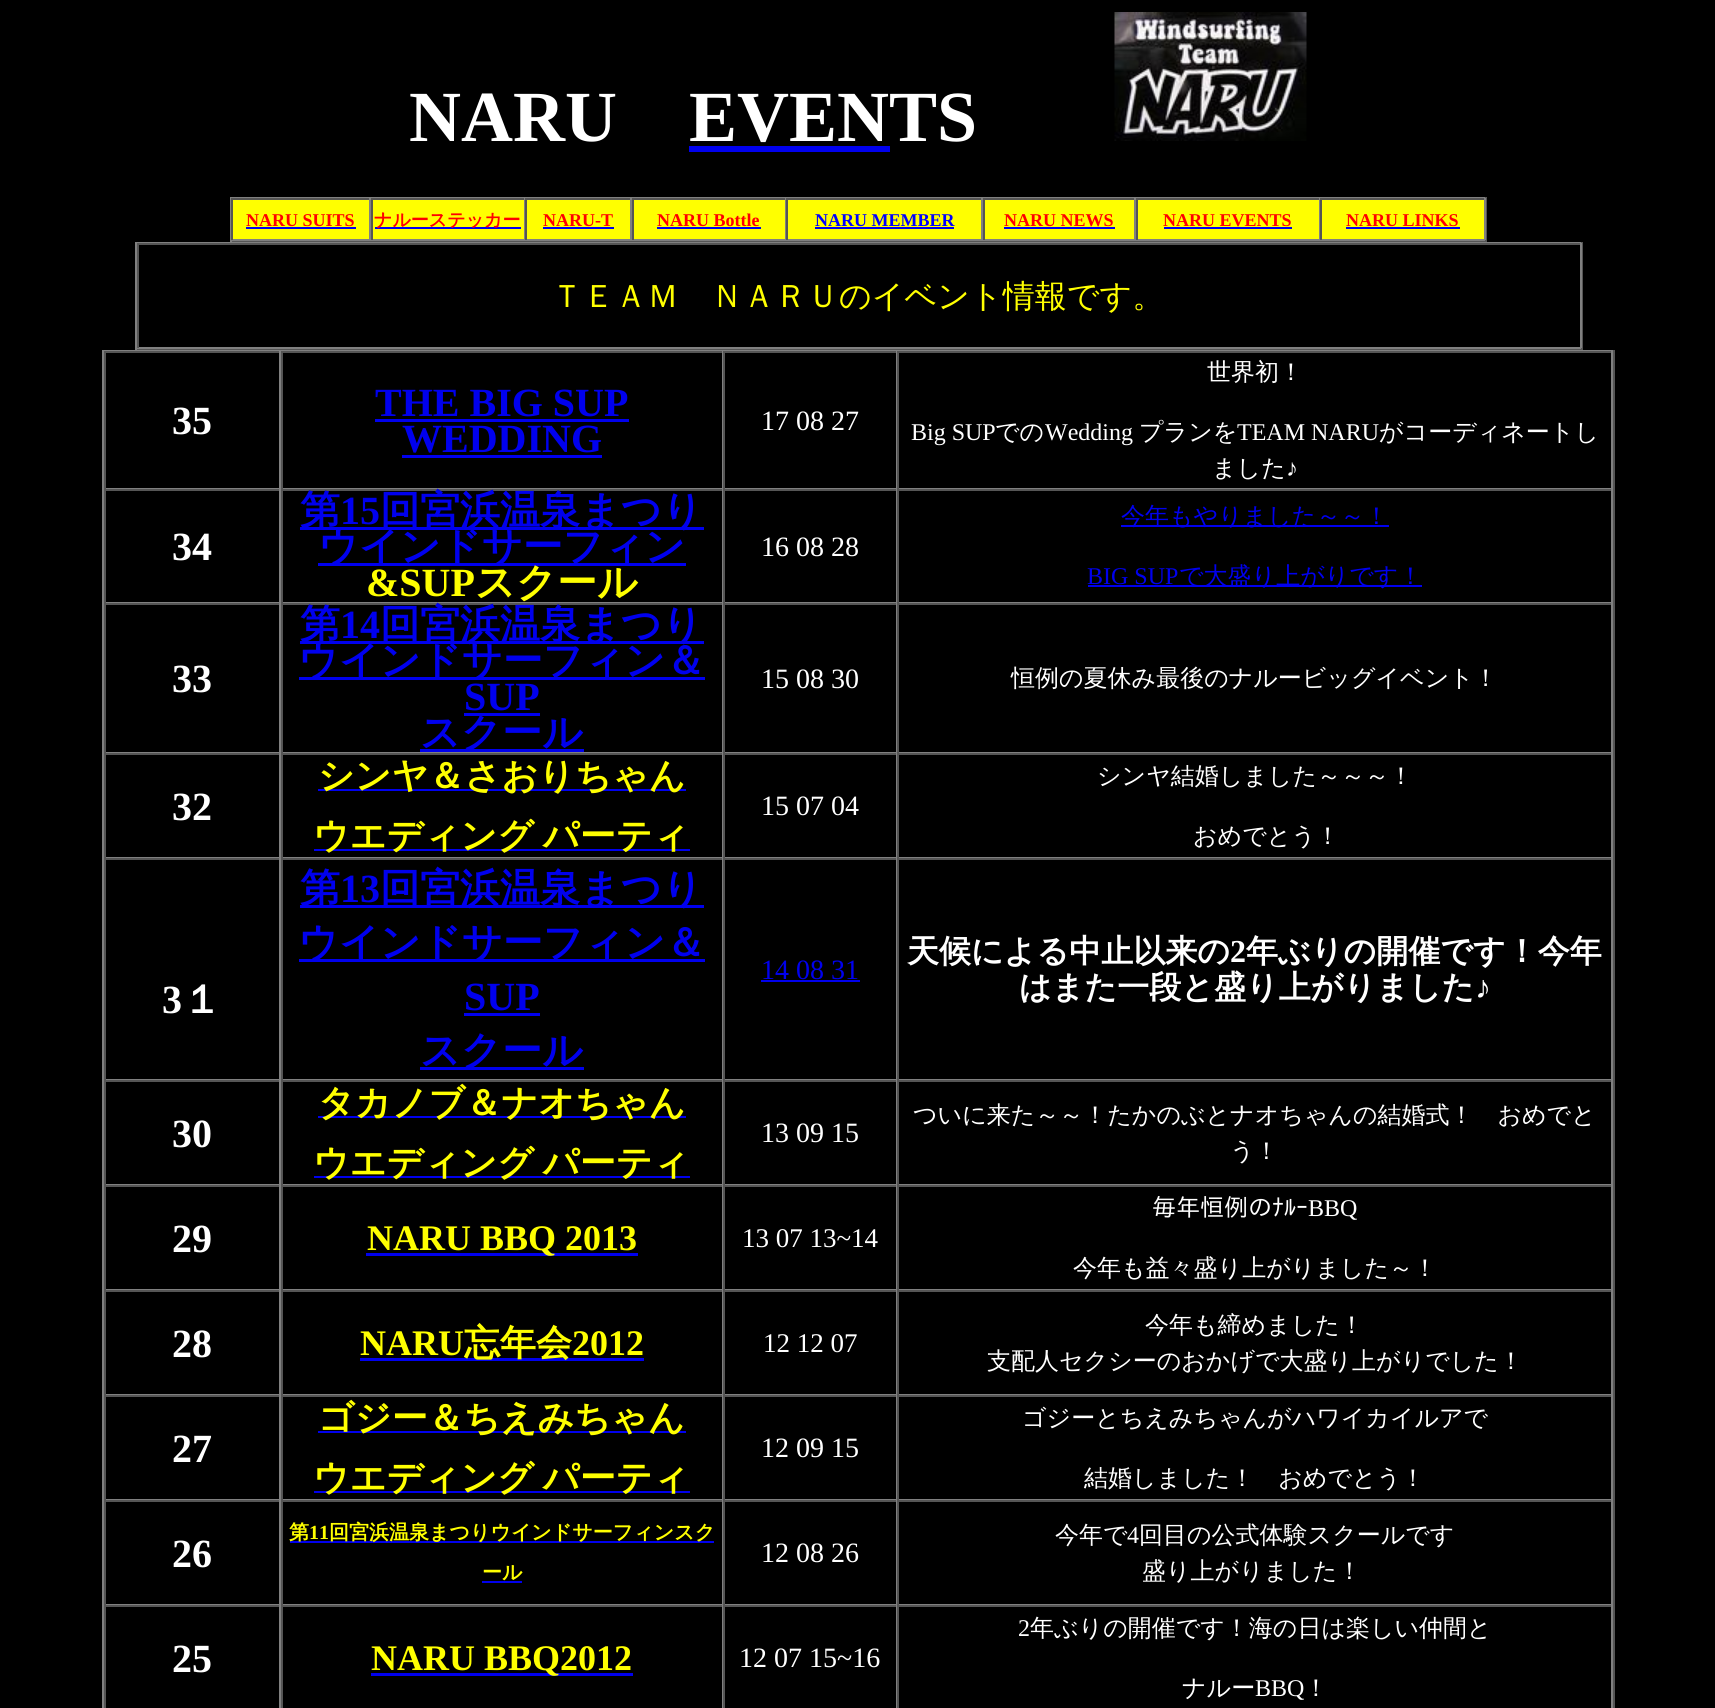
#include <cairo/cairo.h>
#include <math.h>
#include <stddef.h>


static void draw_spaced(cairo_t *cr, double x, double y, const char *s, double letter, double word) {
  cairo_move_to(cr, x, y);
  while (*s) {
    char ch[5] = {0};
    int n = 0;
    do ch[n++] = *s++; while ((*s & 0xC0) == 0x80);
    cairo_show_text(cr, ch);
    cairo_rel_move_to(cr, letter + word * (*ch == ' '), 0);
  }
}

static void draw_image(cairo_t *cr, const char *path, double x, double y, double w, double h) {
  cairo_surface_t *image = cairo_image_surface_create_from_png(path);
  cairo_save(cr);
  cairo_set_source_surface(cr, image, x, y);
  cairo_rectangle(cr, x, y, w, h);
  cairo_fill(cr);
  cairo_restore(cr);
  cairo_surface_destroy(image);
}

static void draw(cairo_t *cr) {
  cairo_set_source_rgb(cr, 0, 0, 0);
  cairo_paint(cr);
  cairo_set_source_rgb(cr, 0, 0, 238 / 255.0);
  cairo_rectangle(cr, 689, 146, 201, 6);
  cairo_fill(cr);
  draw_image(cr, "images/1.png", 1114, 12, 193, 129);
  cairo_set_source_rgb(cr, 128 / 255.0, 128 / 255.0, 128 / 255.0);
  cairo_rectangle(cr, 230, 197, 1257, 1);
  cairo_fill(cr);
  cairo_set_source_rgb(cr, 85 / 255.0, 85 / 255.0, 85 / 255.0);
  cairo_rectangle(cr, 1485, 197, 2, 45);
  cairo_fill(cr);
  cairo_rectangle(cr, 230, 240, 1257, 2);
  cairo_fill(cr);
  cairo_set_source_rgb(cr, 128 / 255.0, 128 / 255.0, 128 / 255.0);
  cairo_rectangle(cr, 230, 197, 2, 45);
  cairo_fill(cr);
  cairo_set_source_rgb(cr, 1, 1, 0);
  cairo_rectangle(cr, 233, 200, 136, 39);
  cairo_fill(cr);
  cairo_set_source_rgb(cr, 85 / 255.0, 85 / 255.0, 85 / 255.0);
  cairo_rectangle(cr, 231, 198, 1254, 2);
  cairo_fill(cr);
  cairo_set_source_rgb(cr, 128 / 255.0, 128 / 255.0, 128 / 255.0);
  cairo_rectangle(cr, 369, 198, 2, 42);
  cairo_fill(cr);
  cairo_rectangle(cr, 231, 239, 140, 2);
  cairo_fill(cr);
  cairo_set_source_rgb(cr, 85 / 255.0, 85 / 255.0, 85 / 255.0);
  cairo_rectangle(cr, 231, 198, 2, 42);
  cairo_fill(cr);
  cairo_set_source_rgb(cr, 0, 0, 238 / 255.0);
  cairo_rectangle(cr, 246, 227, 110, 2);
  cairo_fill(cr);
  cairo_set_source_rgb(cr, 1, 1, 0);
  cairo_rectangle(cr, 373, 200, 151, 39);
  cairo_fill(cr);
  cairo_set_source_rgb(cr, 128 / 255.0, 128 / 255.0, 128 / 255.0);
  cairo_rectangle(cr, 524, 198, 1, 42);
  cairo_fill(cr);
  cairo_rectangle(cr, 371, 239, 154, 2);
  cairo_fill(cr);
  cairo_set_source_rgb(cr, 85 / 255.0, 85 / 255.0, 85 / 255.0);
  cairo_rectangle(cr, 371, 198, 2, 42);
  cairo_fill(cr);
  cairo_set_source_rgb(cr, 0, 0, 238 / 255.0);
  cairo_rectangle(cr, 375, 227, 146, 2);
  cairo_fill(cr);
  cairo_set_source_rgb(cr, 1, 1, 0);
  cairo_rectangle(cr, 527, 200, 103, 39);
  cairo_fill(cr);
  cairo_set_source_rgb(cr, 128 / 255.0, 128 / 255.0, 128 / 255.0);
  cairo_rectangle(cr, 630, 198, 2, 42);
  cairo_fill(cr);
  cairo_rectangle(cr, 525, 239, 107, 2);
  cairo_fill(cr);
  cairo_set_source_rgb(cr, 85 / 255.0, 85 / 255.0, 85 / 255.0);
  cairo_rectangle(cr, 525, 198, 2, 42);
  cairo_fill(cr);
  cairo_set_source_rgb(cr, 0, 0, 238 / 255.0);
  cairo_rectangle(cr, 543, 227, 71, 2);
  cairo_fill(cr);
  cairo_set_source_rgb(cr, 1, 1, 0);
  cairo_rectangle(cr, 634, 200, 151, 39);
  cairo_fill(cr);
  cairo_set_source_rgb(cr, 128 / 255.0, 128 / 255.0, 128 / 255.0);
  cairo_rectangle(cr, 785, 198, 1, 42);
  cairo_fill(cr);
  cairo_rectangle(cr, 632, 239, 154, 2);
  cairo_fill(cr);
  cairo_set_source_rgb(cr, 85 / 255.0, 85 / 255.0, 85 / 255.0);
  cairo_rectangle(cr, 632, 198, 2, 42);
  cairo_fill(cr);
  cairo_set_source_rgb(cr, 0, 0, 238 / 255.0);
  cairo_rectangle(cr, 657, 227, 104, 2);
  cairo_fill(cr);
  cairo_set_source_rgb(cr, 1, 1, 0);
  cairo_rectangle(cr, 788, 200, 193, 39);
  cairo_fill(cr);
  cairo_set_source_rgb(cr, 128 / 255.0, 128 / 255.0, 128 / 255.0);
  cairo_rectangle(cr, 981, 198, 2, 42);
  cairo_fill(cr);
  cairo_rectangle(cr, 786, 239, 197, 2);
  cairo_fill(cr);
  cairo_set_source_rgb(cr, 85 / 255.0, 85 / 255.0, 85 / 255.0);
  cairo_rectangle(cr, 786, 198, 2, 42);
  cairo_fill(cr);
  cairo_set_source_rgb(cr, 0, 0, 238 / 255.0);
  cairo_rectangle(cr, 815, 227, 139, 2);
  cairo_fill(cr);
  cairo_set_source_rgb(cr, 1, 1, 0);
  cairo_rectangle(cr, 985, 200, 149, 39);
  cairo_fill(cr);
  cairo_set_source_rgb(cr, 128 / 255.0, 128 / 255.0, 128 / 255.0);
  cairo_rectangle(cr, 1134, 198, 2, 42);
  cairo_fill(cr);
  cairo_rectangle(cr, 983, 239, 153, 2);
  cairo_fill(cr);
  cairo_set_source_rgb(cr, 85 / 255.0, 85 / 255.0, 85 / 255.0);
  cairo_rectangle(cr, 983, 198, 2, 42);
  cairo_fill(cr);
  cairo_set_source_rgb(cr, 0, 0, 238 / 255.0);
  cairo_rectangle(cr, 1004, 227, 111, 2);
  cairo_fill(cr);
  cairo_set_source_rgb(cr, 1, 1, 0);
  cairo_rectangle(cr, 1138, 200, 181, 39);
  cairo_fill(cr);
  cairo_set_source_rgb(cr, 128 / 255.0, 128 / 255.0, 128 / 255.0);
  cairo_rectangle(cr, 1319, 198, 1, 42);
  cairo_fill(cr);
  cairo_rectangle(cr, 1136, 239, 184, 2);
  cairo_fill(cr);
  cairo_set_source_rgb(cr, 85 / 255.0, 85 / 255.0, 85 / 255.0);
  cairo_rectangle(cr, 1136, 198, 2, 42);
  cairo_fill(cr);
  cairo_set_source_rgb(cr, 0, 0, 238 / 255.0);
  cairo_rectangle(cr, 1164, 227, 128, 2);
  cairo_fill(cr);
  cairo_set_source_rgb(cr, 1, 1, 0);
  cairo_rectangle(cr, 1322, 200, 162, 39);
  cairo_fill(cr);
  cairo_set_source_rgb(cr, 128 / 255.0, 128 / 255.0, 128 / 255.0);
  cairo_rectangle(cr, 1484, 198, 2, 42);
  cairo_fill(cr);
  cairo_rectangle(cr, 1320, 239, 165, 2);
  cairo_fill(cr);
  cairo_set_source_rgb(cr, 85 / 255.0, 85 / 255.0, 85 / 255.0);
  cairo_rectangle(cr, 1320, 198, 2, 42);
  cairo_fill(cr);
  cairo_set_source_rgb(cr, 0, 0, 238 / 255.0);
  cairo_rectangle(cr, 1346, 227, 114, 2);
  cairo_fill(cr);
  cairo_set_source_rgb(cr, 128 / 255.0, 128 / 255.0, 128 / 255.0);
  cairo_rectangle(cr, 135, 242, 1448, 1);
  cairo_fill(cr);
  cairo_set_source_rgb(cr, 85 / 255.0, 85 / 255.0, 85 / 255.0);
  cairo_rectangle(cr, 1581, 242, 2, 108);
  cairo_fill(cr);
  cairo_rectangle(cr, 135, 348, 1448, 2);
  cairo_fill(cr);
  cairo_set_source_rgb(cr, 128 / 255.0, 128 / 255.0, 128 / 255.0);
  cairo_rectangle(cr, 135, 242, 2, 108);
  cairo_fill(cr);
  cairo_set_source_rgb(cr, 85 / 255.0, 85 / 255.0, 85 / 255.0);
  cairo_rectangle(cr, 137, 243, 1444, 2);
  cairo_fill(cr);
  cairo_set_source_rgb(cr, 128 / 255.0, 128 / 255.0, 128 / 255.0);
  cairo_rectangle(cr, 1580, 243, 2, 105);
  cairo_fill(cr);
  cairo_rectangle(cr, 137, 347, 1444, 2);
  cairo_fill(cr);
  cairo_set_source_rgb(cr, 85 / 255.0, 85 / 255.0, 85 / 255.0);
  cairo_rectangle(cr, 137, 243, 2, 105);
  cairo_fill(cr);
  cairo_set_source_rgb(cr, 128 / 255.0, 128 / 255.0, 128 / 255.0);
  cairo_rectangle(cr, 102, 350, 1512, 1);
  cairo_fill(cr);
  cairo_set_source_rgb(cr, 85 / 255.0, 85 / 255.0, 85 / 255.0);
  cairo_rectangle(cr, 1613, 350, 2, 1358);
  cairo_fill(cr);
  cairo_set_source_rgb(cr, 128 / 255.0, 128 / 255.0, 128 / 255.0);
  cairo_rectangle(cr, 102, 350, 2, 1358);
  cairo_fill(cr);
  cairo_set_source_rgb(cr, 85 / 255.0, 85 / 255.0, 85 / 255.0);
  cairo_rectangle(cr, 104, 351, 1509, 2);
  cairo_fill(cr);
  cairo_set_source_rgb(cr, 128 / 255.0, 128 / 255.0, 128 / 255.0);
  cairo_rectangle(cr, 279, 351, 2, 138);
  cairo_fill(cr);
  cairo_rectangle(cr, 104, 488, 177, 1);
  cairo_fill(cr);
  cairo_set_source_rgb(cr, 85 / 255.0, 85 / 255.0, 85 / 255.0);
  cairo_rectangle(cr, 104, 351, 2, 138);
  cairo_fill(cr);
  cairo_set_source_rgb(cr, 128 / 255.0, 128 / 255.0, 128 / 255.0);
  cairo_rectangle(cr, 722, 351, 1, 138);
  cairo_fill(cr);
  cairo_rectangle(cr, 281, 488, 442, 1);
  cairo_fill(cr);
  cairo_set_source_rgb(cr, 85 / 255.0, 85 / 255.0, 85 / 255.0);
  cairo_rectangle(cr, 281, 351, 2, 138);
  cairo_fill(cr);
  cairo_set_source_rgb(cr, 0, 0, 238 / 255.0);
  cairo_rectangle(cr, 375, 419, 254, 3);
  cairo_fill(cr);
  cairo_rectangle(cr, 402, 455, 200, 3);
  cairo_fill(cr);
  cairo_set_source_rgb(cr, 128 / 255.0, 128 / 255.0, 128 / 255.0);
  cairo_rectangle(cr, 896, 351, 1, 138);
  cairo_fill(cr);
  cairo_rectangle(cr, 723, 488, 174, 1);
  cairo_fill(cr);
  cairo_set_source_rgb(cr, 85 / 255.0, 85 / 255.0, 85 / 255.0);
  cairo_rectangle(cr, 723, 351, 2, 138);
  cairo_fill(cr);
  cairo_set_source_rgb(cr, 128 / 255.0, 128 / 255.0, 128 / 255.0);
  cairo_rectangle(cr, 1611, 351, 2, 138);
  cairo_fill(cr);
  cairo_rectangle(cr, 897, 488, 716, 1);
  cairo_fill(cr);
  cairo_set_source_rgb(cr, 85 / 255.0, 85 / 255.0, 85 / 255.0);
  cairo_rectangle(cr, 897, 351, 2, 138);
  cairo_fill(cr);
  cairo_rectangle(cr, 104, 489, 1509, 2);
  cairo_fill(cr);
  cairo_set_source_rgb(cr, 128 / 255.0, 128 / 255.0, 128 / 255.0);
  cairo_rectangle(cr, 279, 489, 2, 114);
  cairo_fill(cr);
  cairo_rectangle(cr, 104, 602, 177, 1);
  cairo_fill(cr);
  cairo_set_source_rgb(cr, 85 / 255.0, 85 / 255.0, 85 / 255.0);
  cairo_rectangle(cr, 104, 489, 2, 114);
  cairo_fill(cr);
  cairo_set_source_rgb(cr, 128 / 255.0, 128 / 255.0, 128 / 255.0);
  cairo_rectangle(cr, 722, 489, 1, 114);
  cairo_fill(cr);
  cairo_rectangle(cr, 281, 602, 442, 1);
  cairo_fill(cr);
  cairo_set_source_rgb(cr, 85 / 255.0, 85 / 255.0, 85 / 255.0);
  cairo_rectangle(cr, 281, 489, 2, 114);
  cairo_fill(cr);
  cairo_set_source_rgb(cr, 0, 0, 238 / 255.0);
  cairo_rectangle(cr, 300, 527, 404, 3);
  cairo_fill(cr);
  cairo_rectangle(cr, 318, 563, 368, 3);
  cairo_fill(cr);
  cairo_set_source_rgb(cr, 128 / 255.0, 128 / 255.0, 128 / 255.0);
  cairo_rectangle(cr, 896, 489, 1, 114);
  cairo_fill(cr);
  cairo_rectangle(cr, 723, 602, 174, 1);
  cairo_fill(cr);
  cairo_set_source_rgb(cr, 85 / 255.0, 85 / 255.0, 85 / 255.0);
  cairo_rectangle(cr, 723, 489, 2, 114);
  cairo_fill(cr);
  cairo_set_source_rgb(cr, 128 / 255.0, 128 / 255.0, 128 / 255.0);
  cairo_rectangle(cr, 1611, 489, 2, 114);
  cairo_fill(cr);
  cairo_rectangle(cr, 897, 602, 716, 1);
  cairo_fill(cr);
  cairo_set_source_rgb(cr, 85 / 255.0, 85 / 255.0, 85 / 255.0);
  cairo_rectangle(cr, 897, 489, 2, 114);
  cairo_fill(cr);
  cairo_set_source_rgb(cr, 0, 0, 238 / 255.0);
  cairo_rectangle(cr, 1121, 525, 268, 2);
  cairo_fill(cr);
  cairo_rectangle(cr, 1088, 585, 334, 2);
  cairo_fill(cr);
  cairo_set_source_rgb(cr, 85 / 255.0, 85 / 255.0, 85 / 255.0);
  cairo_rectangle(cr, 104, 603, 1509, 2);
  cairo_fill(cr);
  cairo_set_source_rgb(cr, 128 / 255.0, 128 / 255.0, 128 / 255.0);
  cairo_rectangle(cr, 279, 603, 2, 150);
  cairo_fill(cr);
  cairo_rectangle(cr, 104, 752, 177, 1);
  cairo_fill(cr);
  cairo_set_source_rgb(cr, 85 / 255.0, 85 / 255.0, 85 / 255.0);
  cairo_rectangle(cr, 104, 603, 2, 150);
  cairo_fill(cr);
  cairo_set_source_rgb(cr, 128 / 255.0, 128 / 255.0, 128 / 255.0);
  cairo_rectangle(cr, 722, 603, 1, 150);
  cairo_fill(cr);
  cairo_rectangle(cr, 281, 752, 442, 1);
  cairo_fill(cr);
  cairo_set_source_rgb(cr, 85 / 255.0, 85 / 255.0, 85 / 255.0);
  cairo_rectangle(cr, 281, 603, 2, 150);
  cairo_fill(cr);
  cairo_set_source_rgb(cr, 0, 0, 238 / 255.0);
  cairo_rectangle(cr, 300, 641, 404, 3);
  cairo_fill(cr);
  cairo_rectangle(cr, 299, 677, 406, 3);
  cairo_fill(cr);
  cairo_rectangle(cr, 464, 713, 76, 3);
  cairo_fill(cr);
  cairo_rectangle(cr, 420, 749, 164, 3);
  cairo_fill(cr);
  cairo_set_source_rgb(cr, 128 / 255.0, 128 / 255.0, 128 / 255.0);
  cairo_rectangle(cr, 896, 603, 1, 150);
  cairo_fill(cr);
  cairo_rectangle(cr, 723, 752, 174, 1);
  cairo_fill(cr);
  cairo_set_source_rgb(cr, 85 / 255.0, 85 / 255.0, 85 / 255.0);
  cairo_rectangle(cr, 723, 603, 2, 150);
  cairo_fill(cr);
  cairo_set_source_rgb(cr, 128 / 255.0, 128 / 255.0, 128 / 255.0);
  cairo_rectangle(cr, 1611, 603, 2, 150);
  cairo_fill(cr);
  cairo_rectangle(cr, 897, 752, 716, 1);
  cairo_fill(cr);
  cairo_set_source_rgb(cr, 85 / 255.0, 85 / 255.0, 85 / 255.0);
  cairo_rectangle(cr, 897, 603, 2, 150);
  cairo_fill(cr);
  cairo_rectangle(cr, 104, 753, 1509, 2);
  cairo_fill(cr);
  cairo_set_source_rgb(cr, 128 / 255.0, 128 / 255.0, 128 / 255.0);
  cairo_rectangle(cr, 279, 753, 2, 105);
  cairo_fill(cr);
  cairo_rectangle(cr, 104, 857, 177, 1);
  cairo_fill(cr);
  cairo_set_source_rgb(cr, 85 / 255.0, 85 / 255.0, 85 / 255.0);
  cairo_rectangle(cr, 104, 753, 2, 105);
  cairo_fill(cr);
  cairo_set_source_rgb(cr, 128 / 255.0, 128 / 255.0, 128 / 255.0);
  cairo_rectangle(cr, 722, 753, 1, 105);
  cairo_fill(cr);
  cairo_rectangle(cr, 281, 857, 442, 1);
  cairo_fill(cr);
  cairo_set_source_rgb(cr, 85 / 255.0, 85 / 255.0, 85 / 255.0);
  cairo_rectangle(cr, 281, 753, 2, 105);
  cairo_fill(cr);
  cairo_set_source_rgb(cr, 0, 0, 238 / 255.0);
  cairo_rectangle(cr, 318, 789, 368, 2);
  cairo_fill(cr);
  cairo_rectangle(cr, 314, 849, 376, 2);
  cairo_fill(cr);
  cairo_set_source_rgb(cr, 128 / 255.0, 128 / 255.0, 128 / 255.0);
  cairo_rectangle(cr, 896, 753, 1, 105);
  cairo_fill(cr);
  cairo_rectangle(cr, 723, 857, 174, 1);
  cairo_fill(cr);
  cairo_set_source_rgb(cr, 85 / 255.0, 85 / 255.0, 85 / 255.0);
  cairo_rectangle(cr, 723, 753, 2, 105);
  cairo_fill(cr);
  cairo_set_source_rgb(cr, 128 / 255.0, 128 / 255.0, 128 / 255.0);
  cairo_rectangle(cr, 1611, 753, 2, 105);
  cairo_fill(cr);
  cairo_rectangle(cr, 897, 857, 716, 1);
  cairo_fill(cr);
  cairo_set_source_rgb(cr, 85 / 255.0, 85 / 255.0, 85 / 255.0);
  cairo_rectangle(cr, 897, 753, 2, 105);
  cairo_fill(cr);
  cairo_rectangle(cr, 104, 858, 1509, 2);
  cairo_fill(cr);
  cairo_set_source_rgb(cr, 128 / 255.0, 128 / 255.0, 128 / 255.0);
  cairo_rectangle(cr, 722, 858, 1, 222);
  cairo_fill(cr);
  cairo_rectangle(cr, 281, 1079, 442, 1);
  cairo_fill(cr);
  cairo_set_source_rgb(cr, 85 / 255.0, 85 / 255.0, 85 / 255.0);
  cairo_rectangle(cr, 281, 858, 2, 222);
  cairo_fill(cr);
  cairo_set_source_rgb(cr, 0, 0, 238 / 255.0);
  cairo_rectangle(cr, 300, 905, 404, 3);
  cairo_fill(cr);
  cairo_rectangle(cr, 299, 959, 406, 3);
  cairo_fill(cr);
  cairo_rectangle(cr, 464, 1013, 76, 3);
  cairo_fill(cr);
  cairo_rectangle(cr, 420, 1067, 164, 3);
  cairo_fill(cr);
  cairo_set_source_rgb(cr, 128 / 255.0, 128 / 255.0, 128 / 255.0);
  cairo_rectangle(cr, 896, 858, 1, 222);
  cairo_fill(cr);
  cairo_rectangle(cr, 723, 1079, 174, 1);
  cairo_fill(cr);
  cairo_set_source_rgb(cr, 85 / 255.0, 85 / 255.0, 85 / 255.0);
  cairo_rectangle(cr, 723, 858, 2, 222);
  cairo_fill(cr);
  cairo_set_source_rgb(cr, 0, 0, 238 / 255.0);
  cairo_rectangle(cr, 761, 980, 99, 2);
  cairo_fill(cr);
  cairo_set_source_rgb(cr, 128 / 255.0, 128 / 255.0, 128 / 255.0);
  cairo_rectangle(cr, 1611, 858, 2, 222);
  cairo_fill(cr);
  cairo_rectangle(cr, 897, 1079, 716, 1);
  cairo_fill(cr);
  cairo_set_source_rgb(cr, 85 / 255.0, 85 / 255.0, 85 / 255.0);
  cairo_rectangle(cr, 897, 858, 2, 222);
  cairo_fill(cr);
  cairo_set_source_rgb(cr, 128 / 255.0, 128 / 255.0, 128 / 255.0);
  cairo_rectangle(cr, 279, 858, 2, 222);
  cairo_fill(cr);
  cairo_rectangle(cr, 104, 1079, 177, 1);
  cairo_fill(cr);
  cairo_set_source_rgb(cr, 85 / 255.0, 85 / 255.0, 85 / 255.0);
  cairo_rectangle(cr, 104, 858, 2, 222);
  cairo_fill(cr);
  cairo_rectangle(cr, 104, 1080, 1509, 2);
  cairo_fill(cr);
  cairo_set_source_rgb(cr, 128 / 255.0, 128 / 255.0, 128 / 255.0);
  cairo_rectangle(cr, 279, 1080, 2, 105);
  cairo_fill(cr);
  cairo_rectangle(cr, 104, 1184, 177, 1);
  cairo_fill(cr);
  cairo_set_source_rgb(cr, 85 / 255.0, 85 / 255.0, 85 / 255.0);
  cairo_rectangle(cr, 104, 1080, 2, 105);
  cairo_fill(cr);
  cairo_set_source_rgb(cr, 128 / 255.0, 128 / 255.0, 128 / 255.0);
  cairo_rectangle(cr, 722, 1080, 1, 105);
  cairo_fill(cr);
  cairo_rectangle(cr, 281, 1184, 442, 1);
  cairo_fill(cr);
  cairo_set_source_rgb(cr, 85 / 255.0, 85 / 255.0, 85 / 255.0);
  cairo_rectangle(cr, 281, 1080, 2, 105);
  cairo_fill(cr);
  cairo_set_source_rgb(cr, 0, 0, 238 / 255.0);
  cairo_rectangle(cr, 318, 1116, 368, 2);
  cairo_fill(cr);
  cairo_rectangle(cr, 314, 1176, 376, 2);
  cairo_fill(cr);
  cairo_set_source_rgb(cr, 128 / 255.0, 128 / 255.0, 128 / 255.0);
  cairo_rectangle(cr, 896, 1080, 1, 105);
  cairo_fill(cr);
  cairo_rectangle(cr, 723, 1184, 174, 1);
  cairo_fill(cr);
  cairo_set_source_rgb(cr, 85 / 255.0, 85 / 255.0, 85 / 255.0);
  cairo_rectangle(cr, 723, 1080, 2, 105);
  cairo_fill(cr);
  cairo_set_source_rgb(cr, 128 / 255.0, 128 / 255.0, 128 / 255.0);
  cairo_rectangle(cr, 1611, 1080, 2, 105);
  cairo_fill(cr);
  cairo_rectangle(cr, 897, 1184, 716, 1);
  cairo_fill(cr);
  cairo_set_source_rgb(cr, 85 / 255.0, 85 / 255.0, 85 / 255.0);
  cairo_rectangle(cr, 897, 1080, 2, 105);
  cairo_fill(cr);
  cairo_rectangle(cr, 104, 1185, 1509, 2);
  cairo_fill(cr);
  cairo_set_source_rgb(cr, 128 / 255.0, 128 / 255.0, 128 / 255.0);
  cairo_rectangle(cr, 279, 1185, 2, 105);
  cairo_fill(cr);
  cairo_rectangle(cr, 104, 1289, 177, 1);
  cairo_fill(cr);
  cairo_set_source_rgb(cr, 85 / 255.0, 85 / 255.0, 85 / 255.0);
  cairo_rectangle(cr, 104, 1185, 2, 105);
  cairo_fill(cr);
  cairo_set_source_rgb(cr, 128 / 255.0, 128 / 255.0, 128 / 255.0);
  cairo_rectangle(cr, 722, 1185, 1, 105);
  cairo_fill(cr);
  cairo_rectangle(cr, 281, 1289, 442, 1);
  cairo_fill(cr);
  cairo_set_source_rgb(cr, 85 / 255.0, 85 / 255.0, 85 / 255.0);
  cairo_rectangle(cr, 281, 1185, 2, 105);
  cairo_fill(cr);
  cairo_set_source_rgb(cr, 0, 0, 238 / 255.0);
  cairo_rectangle(cr, 366, 1253, 272, 3);
  cairo_fill(cr);
  cairo_set_source_rgb(cr, 128 / 255.0, 128 / 255.0, 128 / 255.0);
  cairo_rectangle(cr, 896, 1185, 1, 105);
  cairo_fill(cr);
  cairo_rectangle(cr, 723, 1289, 174, 1);
  cairo_fill(cr);
  cairo_set_source_rgb(cr, 85 / 255.0, 85 / 255.0, 85 / 255.0);
  cairo_rectangle(cr, 723, 1185, 2, 105);
  cairo_fill(cr);
  cairo_set_source_rgb(cr, 128 / 255.0, 128 / 255.0, 128 / 255.0);
  cairo_rectangle(cr, 1611, 1185, 2, 105);
  cairo_fill(cr);
  cairo_rectangle(cr, 897, 1289, 716, 1);
  cairo_fill(cr);
  cairo_set_source_rgb(cr, 85 / 255.0, 85 / 255.0, 85 / 255.0);
  cairo_rectangle(cr, 897, 1185, 2, 105);
  cairo_fill(cr);
  cairo_rectangle(cr, 104, 1290, 1509, 2);
  cairo_fill(cr);
  cairo_set_source_rgb(cr, 128 / 255.0, 128 / 255.0, 128 / 255.0);
  cairo_rectangle(cr, 279, 1290, 2, 105);
  cairo_fill(cr);
  cairo_rectangle(cr, 104, 1394, 177, 1);
  cairo_fill(cr);
  cairo_set_source_rgb(cr, 85 / 255.0, 85 / 255.0, 85 / 255.0);
  cairo_rectangle(cr, 104, 1290, 2, 105);
  cairo_fill(cr);
  cairo_set_source_rgb(cr, 128 / 255.0, 128 / 255.0, 128 / 255.0);
  cairo_rectangle(cr, 722, 1290, 1, 105);
  cairo_fill(cr);
  cairo_rectangle(cr, 281, 1394, 442, 1);
  cairo_fill(cr);
  cairo_set_source_rgb(cr, 85 / 255.0, 85 / 255.0, 85 / 255.0);
  cairo_rectangle(cr, 281, 1290, 2, 105);
  cairo_fill(cr);
  cairo_set_source_rgb(cr, 0, 0, 238 / 255.0);
  cairo_rectangle(cr, 360, 1358, 284, 3);
  cairo_fill(cr);
  cairo_set_source_rgb(cr, 128 / 255.0, 128 / 255.0, 128 / 255.0);
  cairo_rectangle(cr, 896, 1290, 1, 105);
  cairo_fill(cr);
  cairo_rectangle(cr, 723, 1394, 174, 1);
  cairo_fill(cr);
  cairo_set_source_rgb(cr, 85 / 255.0, 85 / 255.0, 85 / 255.0);
  cairo_rectangle(cr, 723, 1290, 2, 105);
  cairo_fill(cr);
  cairo_set_source_rgb(cr, 128 / 255.0, 128 / 255.0, 128 / 255.0);
  cairo_rectangle(cr, 1611, 1290, 2, 105);
  cairo_fill(cr);
  cairo_rectangle(cr, 897, 1394, 716, 1);
  cairo_fill(cr);
  cairo_set_source_rgb(cr, 85 / 255.0, 85 / 255.0, 85 / 255.0);
  cairo_rectangle(cr, 897, 1290, 2, 105);
  cairo_fill(cr);
  cairo_rectangle(cr, 104, 1395, 1509, 2);
  cairo_fill(cr);
  cairo_set_source_rgb(cr, 128 / 255.0, 128 / 255.0, 128 / 255.0);
  cairo_rectangle(cr, 279, 1395, 2, 105);
  cairo_fill(cr);
  cairo_rectangle(cr, 104, 1499, 177, 1);
  cairo_fill(cr);
  cairo_set_source_rgb(cr, 85 / 255.0, 85 / 255.0, 85 / 255.0);
  cairo_rectangle(cr, 104, 1395, 2, 105);
  cairo_fill(cr);
  cairo_set_source_rgb(cr, 128 / 255.0, 128 / 255.0, 128 / 255.0);
  cairo_rectangle(cr, 722, 1395, 1, 105);
  cairo_fill(cr);
  cairo_rectangle(cr, 281, 1499, 442, 1);
  cairo_fill(cr);
  cairo_set_source_rgb(cr, 85 / 255.0, 85 / 255.0, 85 / 255.0);
  cairo_rectangle(cr, 281, 1395, 2, 105);
  cairo_fill(cr);
  cairo_set_source_rgb(cr, 0, 0, 238 / 255.0);
  cairo_rectangle(cr, 318, 1431, 368, 2);
  cairo_fill(cr);
  cairo_rectangle(cr, 314, 1491, 376, 2);
  cairo_fill(cr);
  cairo_set_source_rgb(cr, 128 / 255.0, 128 / 255.0, 128 / 255.0);
  cairo_rectangle(cr, 896, 1395, 1, 105);
  cairo_fill(cr);
  cairo_rectangle(cr, 723, 1499, 174, 1);
  cairo_fill(cr);
  cairo_set_source_rgb(cr, 85 / 255.0, 85 / 255.0, 85 / 255.0);
  cairo_rectangle(cr, 723, 1395, 2, 105);
  cairo_fill(cr);
  cairo_set_source_rgb(cr, 128 / 255.0, 128 / 255.0, 128 / 255.0);
  cairo_rectangle(cr, 1611, 1395, 2, 105);
  cairo_fill(cr);
  cairo_rectangle(cr, 897, 1499, 716, 1);
  cairo_fill(cr);
  cairo_set_source_rgb(cr, 85 / 255.0, 85 / 255.0, 85 / 255.0);
  cairo_rectangle(cr, 897, 1395, 2, 105);
  cairo_fill(cr);
  cairo_rectangle(cr, 104, 1500, 1509, 2);
  cairo_fill(cr);
  cairo_set_source_rgb(cr, 128 / 255.0, 128 / 255.0, 128 / 255.0);
  cairo_rectangle(cr, 279, 1500, 2, 105);
  cairo_fill(cr);
  cairo_rectangle(cr, 104, 1604, 177, 1);
  cairo_fill(cr);
  cairo_set_source_rgb(cr, 85 / 255.0, 85 / 255.0, 85 / 255.0);
  cairo_rectangle(cr, 104, 1500, 2, 105);
  cairo_fill(cr);
  cairo_set_source_rgb(cr, 128 / 255.0, 128 / 255.0, 128 / 255.0);
  cairo_rectangle(cr, 722, 1500, 1, 105);
  cairo_fill(cr);
  cairo_rectangle(cr, 281, 1604, 442, 1);
  cairo_fill(cr);
  cairo_set_source_rgb(cr, 85 / 255.0, 85 / 255.0, 85 / 255.0);
  cairo_rectangle(cr, 281, 1500, 2, 105);
  cairo_fill(cr);
  cairo_set_source_rgb(cr, 0, 0, 238 / 255.0);
  cairo_rectangle(cr, 290, 1541, 424, 2);
  cairo_fill(cr);
  cairo_rectangle(cr, 482, 1581, 40, 2);
  cairo_fill(cr);
  cairo_set_source_rgb(cr, 128 / 255.0, 128 / 255.0, 128 / 255.0);
  cairo_rectangle(cr, 896, 1500, 1, 105);
  cairo_fill(cr);
  cairo_rectangle(cr, 723, 1604, 174, 1);
  cairo_fill(cr);
  cairo_set_source_rgb(cr, 85 / 255.0, 85 / 255.0, 85 / 255.0);
  cairo_rectangle(cr, 723, 1500, 2, 105);
  cairo_fill(cr);
  cairo_set_source_rgb(cr, 128 / 255.0, 128 / 255.0, 128 / 255.0);
  cairo_rectangle(cr, 1611, 1500, 2, 105);
  cairo_fill(cr);
  cairo_rectangle(cr, 897, 1604, 716, 1);
  cairo_fill(cr);
  cairo_set_source_rgb(cr, 85 / 255.0, 85 / 255.0, 85 / 255.0);
  cairo_rectangle(cr, 897, 1500, 2, 105);
  cairo_fill(cr);
  cairo_rectangle(cr, 104, 1605, 1509, 2);
  cairo_fill(cr);
  cairo_set_source_rgb(cr, 128 / 255.0, 128 / 255.0, 128 / 255.0);
  cairo_rectangle(cr, 279, 1605, 2, 103);
  cairo_fill(cr);
  cairo_set_source_rgb(cr, 85 / 255.0, 85 / 255.0, 85 / 255.0);
  cairo_rectangle(cr, 104, 1605, 2, 103);
  cairo_fill(cr);
  cairo_set_source_rgb(cr, 128 / 255.0, 128 / 255.0, 128 / 255.0);
  cairo_rectangle(cr, 722, 1605, 1, 103);
  cairo_fill(cr);
  cairo_set_source_rgb(cr, 85 / 255.0, 85 / 255.0, 85 / 255.0);
  cairo_rectangle(cr, 281, 1605, 2, 103);
  cairo_fill(cr);
  cairo_set_source_rgb(cr, 0, 0, 238 / 255.0);
  cairo_rectangle(cr, 371, 1673, 262, 3);
  cairo_fill(cr);
  cairo_set_source_rgb(cr, 128 / 255.0, 128 / 255.0, 128 / 255.0);
  cairo_rectangle(cr, 896, 1605, 1, 103);
  cairo_fill(cr);
  cairo_set_source_rgb(cr, 85 / 255.0, 85 / 255.0, 85 / 255.0);
  cairo_rectangle(cr, 723, 1605, 2, 103);
  cairo_fill(cr);
  cairo_set_source_rgb(cr, 128 / 255.0, 128 / 255.0, 128 / 255.0);
  cairo_rectangle(cr, 1611, 1605, 2, 103);
  cairo_fill(cr);
  cairo_set_source_rgb(cr, 85 / 255.0, 85 / 255.0, 85 / 255.0);
  cairo_rectangle(cr, 897, 1605, 2, 103);
  cairo_fill(cr);
  cairo_select_font_face(cr, "Liberation Serif", CAIRO_FONT_SLANT_NORMAL, CAIRO_FONT_WEIGHT_BOLD);
  cairo_set_font_size(cr, 72);
  cairo_set_source_rgb(cr, 1, 1, 1);
  cairo_move_to(cr, 409, 141);
  cairo_show_text(cr, "NARU");
  cairo_move_to(cr, 689, 141);
  cairo_show_text(cr, "EVENTS");
  cairo_set_font_size(cr, 18);
  cairo_set_source_rgb(cr, 1, 0, 0);
  cairo_move_to(cr, 246, 226);
  cairo_show_text(cr, "NARU SUITS");
  cairo_select_font_face(cr, "WenQuanYi Zen Hei", CAIRO_FONT_SLANT_NORMAL, CAIRO_FONT_WEIGHT_BOLD);
  cairo_move_to(cr, 374, 226);
  cairo_show_text(cr, "ナルーステッカー");
  cairo_select_font_face(cr, "Liberation Serif", CAIRO_FONT_SLANT_NORMAL, CAIRO_FONT_WEIGHT_BOLD);
  cairo_move_to(cr, 543, 226);
  cairo_show_text(cr, "NARU-T");
  cairo_move_to(cr, 657, 226);
  cairo_show_text(cr, "NARU Bottle");
  cairo_set_source_rgb(cr, 0, 0, 1);
  cairo_move_to(cr, 815, 226);
  cairo_show_text(cr, "NARU MEMBER");
  cairo_set_source_rgb(cr, 1, 0, 0);
  cairo_move_to(cr, 1004, 226);
  cairo_show_text(cr, "NARU NEWS");
  cairo_move_to(cr, 1163, 226);
  cairo_show_text(cr, "NARU EVENTS");
  cairo_move_to(cr, 1346, 226);
  cairo_show_text(cr, "NARU LINKS");
  cairo_select_font_face(cr, "WenQuanYi Zen Hei Medium", CAIRO_FONT_SLANT_NORMAL, CAIRO_FONT_WEIGHT_NORMAL);
  cairo_set_font_size(cr, 32);
  cairo_set_source_rgb(cr, 1, 1, 0);
  cairo_move_to(cr, 551, 307);
  cairo_show_text(cr, "ＴＥＡＭ　ＮＡＲＵのイベント情報です。");
  cairo_select_font_face(cr, "Liberation Serif", CAIRO_FONT_SLANT_NORMAL, CAIRO_FONT_WEIGHT_BOLD);
  cairo_set_font_size(cr, 40);
  cairo_set_source_rgb(cr, 1, 1, 1);
  cairo_move_to(cr, 172, 434);
  cairo_show_text(cr, "35");
  cairo_set_source_rgb(cr, 0, 0, 238 / 255.0);
  cairo_move_to(cr, 375, 416);
  cairo_show_text(cr, "THE BIG SUP");
  cairo_move_to(cr, 402, 452);
  cairo_show_text(cr, "WEDDING");
  cairo_select_font_face(cr, "Liberation Serif", CAIRO_FONT_SLANT_NORMAL, CAIRO_FONT_WEIGHT_NORMAL);
  cairo_set_font_size(cr, 28);
  cairo_set_source_rgb(cr, 1, 1, 1);
  cairo_move_to(cr, 761, 430);
  cairo_show_text(cr, "17 08 27");
  cairo_select_font_face(cr, "WenQuanYi Zen Hei Medium", CAIRO_FONT_SLANT_NORMAL, CAIRO_FONT_WEIGHT_NORMAL);
  cairo_set_font_size(cr, 24);
  cairo_move_to(cr, 1207, 380);
  cairo_show_text(cr, "世界初！");
  cairo_select_font_face(cr, "Liberation Serif", CAIRO_FONT_SLANT_NORMAL, CAIRO_FONT_WEIGHT_NORMAL);
  cairo_move_to(cr, 911, 440);
  cairo_show_text(cr, "Big SUP");
  cairo_select_font_face(cr, "WenQuanYi Zen Hei Medium", CAIRO_FONT_SLANT_NORMAL, CAIRO_FONT_WEIGHT_NORMAL);
  cairo_move_to(cr, 995, 440);
  cairo_show_text(cr, "での");
  cairo_select_font_face(cr, "Liberation Serif", CAIRO_FONT_SLANT_NORMAL, CAIRO_FONT_WEIGHT_NORMAL);
  cairo_move_to(cr, 1045, 440);
  cairo_show_text(cr, "Wedding");
  cairo_select_font_face(cr, "WenQuanYi Zen Hei Medium", CAIRO_FONT_SLANT_NORMAL, CAIRO_FONT_WEIGHT_NORMAL);
  cairo_move_to(cr, 1139, 440);
  cairo_show_text(cr, "プランを");
  cairo_select_font_face(cr, "Liberation Serif", CAIRO_FONT_SLANT_NORMAL, CAIRO_FONT_WEIGHT_NORMAL);
  cairo_move_to(cr, 1237, 440);
  cairo_show_text(cr, "TEAM NARU");
  cairo_select_font_face(cr, "WenQuanYi Zen Hei Medium", CAIRO_FONT_SLANT_NORMAL, CAIRO_FONT_WEIGHT_NORMAL);
  cairo_move_to(cr, 1379, 440);
  cairo_show_text(cr, "がコーディネートし");
  cairo_move_to(cr, 1212, 476);
  cairo_show_text(cr, "ました");
  cairo_select_font_face(cr, "Liberation Serif", CAIRO_FONT_SLANT_NORMAL, CAIRO_FONT_WEIGHT_NORMAL);
  cairo_move_to(cr, 1286, 476);
  cairo_show_text(cr, "♪");
  cairo_select_font_face(cr, "Liberation Serif", CAIRO_FONT_SLANT_NORMAL, CAIRO_FONT_WEIGHT_BOLD);
  cairo_set_font_size(cr, 40);
  cairo_move_to(cr, 172, 560);
  cairo_show_text(cr, "34");
  cairo_select_font_face(cr, "WenQuanYi Zen Hei", CAIRO_FONT_SLANT_NORMAL, CAIRO_FONT_WEIGHT_BOLD);
  cairo_set_source_rgb(cr, 0, 0, 238 / 255.0);
  cairo_move_to(cr, 300, 524);
  cairo_show_text(cr, "第");
  cairo_select_font_face(cr, "Liberation Serif", CAIRO_FONT_SLANT_NORMAL, CAIRO_FONT_WEIGHT_BOLD);
  cairo_move_to(cr, 340, 524);
  cairo_show_text(cr, "15");
  cairo_select_font_face(cr, "WenQuanYi Zen Hei", CAIRO_FONT_SLANT_NORMAL, CAIRO_FONT_WEIGHT_BOLD);
  cairo_move_to(cr, 380, 524);
  cairo_show_text(cr, "回宮浜温泉まつり");
  cairo_move_to(cr, 318, 560);
  cairo_show_text(cr, "ウインドサーフィン");
  cairo_select_font_face(cr, "Liberation Serif", CAIRO_FONT_SLANT_NORMAL, CAIRO_FONT_WEIGHT_BOLD);
  cairo_set_source_rgb(cr, 1, 1, 0);
  cairo_move_to(cr, 366, 596);
  cairo_show_text(cr, "&SUP");
  cairo_select_font_face(cr, "WenQuanYi Zen Hei", CAIRO_FONT_SLANT_NORMAL, CAIRO_FONT_WEIGHT_BOLD);
  cairo_move_to(cr, 475, 596);
  cairo_show_text(cr, "スクール");
  cairo_select_font_face(cr, "Liberation Serif", CAIRO_FONT_SLANT_NORMAL, CAIRO_FONT_WEIGHT_NORMAL);
  cairo_set_font_size(cr, 28);
  cairo_set_source_rgb(cr, 1, 1, 1);
  cairo_move_to(cr, 761, 556);
  cairo_show_text(cr, "16 08 28");
  cairo_select_font_face(cr, "WenQuanYi Zen Hei Medium", CAIRO_FONT_SLANT_NORMAL, CAIRO_FONT_WEIGHT_NORMAL);
  cairo_set_font_size(cr, 24);
  cairo_set_source_rgb(cr, 0, 0, 238 / 255.0);
  cairo_move_to(cr, 1121, 524);
  cairo_show_text(cr, "今年もやりました～～！");
  cairo_select_font_face(cr, "Liberation Serif", CAIRO_FONT_SLANT_NORMAL, CAIRO_FONT_WEIGHT_NORMAL);
  cairo_move_to(cr, 1087, 584);
  cairo_show_text(cr, "BIG SUP");
  cairo_select_font_face(cr, "WenQuanYi Zen Hei Medium", CAIRO_FONT_SLANT_NORMAL, CAIRO_FONT_WEIGHT_NORMAL);
  cairo_move_to(cr, 1179, 584);
  cairo_show_text(cr, "で大盛り上がりです！");
  cairo_select_font_face(cr, "Liberation Serif", CAIRO_FONT_SLANT_NORMAL, CAIRO_FONT_WEIGHT_BOLD);
  cairo_set_font_size(cr, 40);
  cairo_set_source_rgb(cr, 1, 1, 1);
  cairo_move_to(cr, 172, 692);
  cairo_show_text(cr, "33");
  cairo_select_font_face(cr, "WenQuanYi Zen Hei", CAIRO_FONT_SLANT_NORMAL, CAIRO_FONT_WEIGHT_BOLD);
  cairo_set_source_rgb(cr, 0, 0, 238 / 255.0);
  cairo_move_to(cr, 300, 638);
  cairo_show_text(cr, "第");
  cairo_select_font_face(cr, "Liberation Serif", CAIRO_FONT_SLANT_NORMAL, CAIRO_FONT_WEIGHT_BOLD);
  cairo_move_to(cr, 340, 638);
  cairo_show_text(cr, "14");
  cairo_select_font_face(cr, "WenQuanYi Zen Hei", CAIRO_FONT_SLANT_NORMAL, CAIRO_FONT_WEIGHT_BOLD);
  cairo_move_to(cr, 380, 638);
  cairo_show_text(cr, "回宮浜温泉まつり");
  cairo_move_to(cr, 298, 674);
  cairo_show_text(cr, "ウインドサーフィン＆");
  cairo_select_font_face(cr, "Liberation Serif", CAIRO_FONT_SLANT_NORMAL, CAIRO_FONT_WEIGHT_BOLD);
  cairo_move_to(cr, 464, 710);
  cairo_show_text(cr, "SUP");
  cairo_select_font_face(cr, "WenQuanYi Zen Hei", CAIRO_FONT_SLANT_NORMAL, CAIRO_FONT_WEIGHT_BOLD);
  cairo_move_to(cr, 420, 746);
  cairo_show_text(cr, "スクール");
  cairo_select_font_face(cr, "Liberation Serif", CAIRO_FONT_SLANT_NORMAL, CAIRO_FONT_WEIGHT_NORMAL);
  cairo_set_font_size(cr, 28);
  cairo_set_source_rgb(cr, 1, 1, 1);
  cairo_move_to(cr, 761, 688);
  cairo_show_text(cr, "15 08 30");
  cairo_select_font_face(cr, "WenQuanYi Zen Hei Medium", CAIRO_FONT_SLANT_NORMAL, CAIRO_FONT_WEIGHT_NORMAL);
  cairo_set_font_size(cr, 24);
  cairo_move_to(cr, 1011, 686);
  cairo_show_text(cr, "恒例の夏休み最後のナルービッグイベント！");
  cairo_select_font_face(cr, "Liberation Serif", CAIRO_FONT_SLANT_NORMAL, CAIRO_FONT_WEIGHT_BOLD);
  cairo_set_font_size(cr, 40);
  cairo_move_to(cr, 172, 820);
  cairo_show_text(cr, "32");
  cairo_select_font_face(cr, "WenQuanYi Zen Hei", CAIRO_FONT_SLANT_NORMAL, CAIRO_FONT_WEIGHT_BOLD);
  cairo_set_font_size(cr, 36);
  cairo_set_source_rgb(cr, 1, 1, 0);
  cairo_move_to(cr, 318, 788);
  cairo_show_text(cr, "シンヤ＆さおりちゃん");
  draw_spaced(cr, 313, 848, "ウエディング パーティ", 0, -2);
  cairo_select_font_face(cr, "Liberation Serif", CAIRO_FONT_SLANT_NORMAL, CAIRO_FONT_WEIGHT_NORMAL);
  cairo_set_font_size(cr, 28);
  cairo_set_source_rgb(cr, 1, 1, 1);
  cairo_move_to(cr, 761, 815);
  cairo_show_text(cr, "15 07 04");
  cairo_select_font_face(cr, "WenQuanYi Zen Hei Medium", CAIRO_FONT_SLANT_NORMAL, CAIRO_FONT_WEIGHT_NORMAL);
  cairo_set_font_size(cr, 24);
  cairo_move_to(cr, 1097, 784);
  cairo_show_text(cr, "シンヤ結婚しました～～～！");
  cairo_move_to(cr, 1193, 844);
  cairo_show_text(cr, "おめでとう！");
  cairo_select_font_face(cr, "WenQuanYi Zen Hei", CAIRO_FONT_SLANT_NORMAL, CAIRO_FONT_WEIGHT_BOLD);
  cairo_set_font_size(cr, 40);
  cairo_set_source_rgb(cr, 0, 0, 238 / 255.0);
  cairo_move_to(cr, 300, 902);
  cairo_show_text(cr, "第");
  cairo_select_font_face(cr, "Liberation Serif", CAIRO_FONT_SLANT_NORMAL, CAIRO_FONT_WEIGHT_BOLD);
  cairo_move_to(cr, 340, 902);
  cairo_show_text(cr, "13");
  cairo_select_font_face(cr, "WenQuanYi Zen Hei", CAIRO_FONT_SLANT_NORMAL, CAIRO_FONT_WEIGHT_BOLD);
  cairo_move_to(cr, 380, 902);
  cairo_show_text(cr, "回宮浜温泉まつり");
  cairo_move_to(cr, 298, 956);
  cairo_show_text(cr, "ウインドサーフィン＆");
  cairo_select_font_face(cr, "Liberation Serif", CAIRO_FONT_SLANT_NORMAL, CAIRO_FONT_WEIGHT_BOLD);
  cairo_move_to(cr, 464, 1010);
  cairo_show_text(cr, "SUP");
  cairo_select_font_face(cr, "WenQuanYi Zen Hei", CAIRO_FONT_SLANT_NORMAL, CAIRO_FONT_WEIGHT_BOLD);
  cairo_move_to(cr, 420, 1064);
  cairo_show_text(cr, "スクール");
  cairo_select_font_face(cr, "Liberation Serif", CAIRO_FONT_SLANT_NORMAL, CAIRO_FONT_WEIGHT_NORMAL);
  cairo_set_font_size(cr, 28);
  cairo_move_to(cr, 761, 979);
  cairo_show_text(cr, "14 08 31");
  cairo_select_font_face(cr, "WenQuanYi Zen Hei", CAIRO_FONT_SLANT_NORMAL, CAIRO_FONT_WEIGHT_BOLD);
  cairo_set_font_size(cr, 32);
  cairo_set_source_rgb(cr, 1, 1, 1);
  cairo_move_to(cr, 907, 962);
  cairo_show_text(cr, "天候による中止以来の");
  cairo_select_font_face(cr, "Liberation Serif", CAIRO_FONT_SLANT_NORMAL, CAIRO_FONT_WEIGHT_BOLD);
  cairo_move_to(cr, 1230, 962);
  cairo_show_text(cr, "2");
  cairo_select_font_face(cr, "WenQuanYi Zen Hei", CAIRO_FONT_SLANT_NORMAL, CAIRO_FONT_WEIGHT_BOLD);
  cairo_move_to(cr, 1246, 962);
  cairo_show_text(cr, "年ぶりの開催です！今年");
  cairo_move_to(cr, 1019, 998);
  cairo_show_text(cr, "はまた一段と盛り上がりました");
  cairo_select_font_face(cr, "Liberation Serif", CAIRO_FONT_SLANT_NORMAL, CAIRO_FONT_WEIGHT_BOLD);
  cairo_move_to(cr, 1475, 998);
  cairo_show_text(cr, "♪");
  cairo_set_font_size(cr, 40);
  cairo_move_to(cr, 162, 1013);
  cairo_show_text(cr, "3");
  cairo_select_font_face(cr, "WenQuanYi Zen Hei", CAIRO_FONT_SLANT_NORMAL, CAIRO_FONT_WEIGHT_BOLD);
  cairo_move_to(cr, 182, 1013);
  cairo_show_text(cr, "１");
  cairo_select_font_face(cr, "Liberation Serif", CAIRO_FONT_SLANT_NORMAL, CAIRO_FONT_WEIGHT_BOLD);
  cairo_move_to(cr, 172, 1147);
  cairo_show_text(cr, "30");
  cairo_select_font_face(cr, "WenQuanYi Zen Hei", CAIRO_FONT_SLANT_NORMAL, CAIRO_FONT_WEIGHT_BOLD);
  cairo_set_font_size(cr, 36);
  cairo_set_source_rgb(cr, 1, 1, 0);
  cairo_move_to(cr, 318, 1115);
  cairo_show_text(cr, "タカノブ＆ナオちゃん");
  draw_spaced(cr, 313, 1175, "ウエディング パーティ", 0, -2);
  cairo_select_font_face(cr, "Liberation Serif", CAIRO_FONT_SLANT_NORMAL, CAIRO_FONT_WEIGHT_NORMAL);
  cairo_set_font_size(cr, 28);
  cairo_set_source_rgb(cr, 1, 1, 1);
  cairo_move_to(cr, 761, 1142);
  cairo_show_text(cr, "13 09 15");
  cairo_select_font_face(cr, "WenQuanYi Zen Hei Medium", CAIRO_FONT_SLANT_NORMAL, CAIRO_FONT_WEIGHT_NORMAL);
  cairo_set_font_size(cr, 24);
  cairo_move_to(cr, 913, 1123);
  cairo_show_text(cr, "ついに来た～～！たかのぶとナオちゃんの結婚式！　おめでと");
  cairo_move_to(cr, 1230, 1159);
  cairo_show_text(cr, "う！");
  cairo_select_font_face(cr, "Liberation Serif", CAIRO_FONT_SLANT_NORMAL, CAIRO_FONT_WEIGHT_BOLD);
  cairo_set_font_size(cr, 40);
  cairo_move_to(cr, 172, 1252);
  cairo_show_text(cr, "29");
  cairo_set_font_size(cr, 36);
  cairo_set_source_rgb(cr, 1, 1, 0);
  cairo_move_to(cr, 367, 1250);
  cairo_show_text(cr, "NARU BBQ 2013");
  cairo_select_font_face(cr, "Liberation Serif", CAIRO_FONT_SLANT_NORMAL, CAIRO_FONT_WEIGHT_NORMAL);
  cairo_set_font_size(cr, 27);
  cairo_set_source_rgb(cr, 1, 1, 1);
  cairo_move_to(cr, 742, 1247);
  cairo_show_text(cr, "13 07 13~14");
  cairo_select_font_face(cr, "IPAGothic", CAIRO_FONT_SLANT_NORMAL, CAIRO_FONT_WEIGHT_NORMAL);
  cairo_set_font_size(cr, 24);
  cairo_move_to(cr, 1152, 1216);
  cairo_show_text(cr, "毎年恒例のﾅﾙｰ");
  cairo_select_font_face(cr, "Liberation Serif", CAIRO_FONT_SLANT_NORMAL, CAIRO_FONT_WEIGHT_NORMAL);
  cairo_move_to(cr, 1308, 1216);
  cairo_show_text(cr, "BBQ");
  cairo_select_font_face(cr, "WenQuanYi Zen Hei Medium", CAIRO_FONT_SLANT_NORMAL, CAIRO_FONT_WEIGHT_NORMAL);
  cairo_move_to(cr, 1073, 1276);
  cairo_show_text(cr, "今年も益々盛り上がりました～！");
  cairo_select_font_face(cr, "Liberation Serif", CAIRO_FONT_SLANT_NORMAL, CAIRO_FONT_WEIGHT_BOLD);
  cairo_set_font_size(cr, 40);
  cairo_move_to(cr, 172, 1357);
  cairo_show_text(cr, "28");
  cairo_set_font_size(cr, 36);
  cairo_set_source_rgb(cr, 1, 1, 0);
  cairo_move_to(cr, 360, 1355);
  cairo_show_text(cr, "NARU");
  cairo_select_font_face(cr, "WenQuanYi Zen Hei", CAIRO_FONT_SLANT_NORMAL, CAIRO_FONT_WEIGHT_BOLD);
  cairo_move_to(cr, 464, 1355);
  cairo_show_text(cr, "忘年会");
  cairo_select_font_face(cr, "Liberation Serif", CAIRO_FONT_SLANT_NORMAL, CAIRO_FONT_WEIGHT_BOLD);
  cairo_move_to(cr, 572, 1355);
  cairo_show_text(cr, "2012");
  cairo_select_font_face(cr, "Liberation Serif", CAIRO_FONT_SLANT_NORMAL, CAIRO_FONT_WEIGHT_NORMAL);
  cairo_set_font_size(cr, 27);
  cairo_set_source_rgb(cr, 1, 1, 1);
  cairo_move_to(cr, 763, 1352);
  cairo_show_text(cr, "12 12 07");
  cairo_select_font_face(cr, "WenQuanYi Zen Hei Medium", CAIRO_FONT_SLANT_NORMAL, CAIRO_FONT_WEIGHT_NORMAL);
  cairo_set_font_size(cr, 24);
  cairo_move_to(cr, 1145, 1333);
  cairo_show_text(cr, "今年も締めました！");
  cairo_move_to(cr, 987, 1369);
  cairo_show_text(cr, "支配人セクシーのおかげで大盛り上がりでした！");
  cairo_select_font_face(cr, "Liberation Serif", CAIRO_FONT_SLANT_NORMAL, CAIRO_FONT_WEIGHT_BOLD);
  cairo_set_font_size(cr, 40);
  cairo_move_to(cr, 172, 1462);
  cairo_show_text(cr, "27");
  cairo_select_font_face(cr, "WenQuanYi Zen Hei", CAIRO_FONT_SLANT_NORMAL, CAIRO_FONT_WEIGHT_BOLD);
  cairo_set_font_size(cr, 36);
  cairo_set_source_rgb(cr, 1, 1, 0);
  cairo_move_to(cr, 318, 1430);
  cairo_show_text(cr, "ゴジー＆ちえみちゃん");
  draw_spaced(cr, 313, 1490, "ウエディング パーティ", 0, -2);
  cairo_select_font_face(cr, "Liberation Serif", CAIRO_FONT_SLANT_NORMAL, CAIRO_FONT_WEIGHT_NORMAL);
  cairo_set_font_size(cr, 28);
  cairo_set_source_rgb(cr, 1, 1, 1);
  cairo_move_to(cr, 761, 1457);
  cairo_show_text(cr, "12 09 15");
  cairo_select_font_face(cr, "WenQuanYi Zen Hei Medium", CAIRO_FONT_SLANT_NORMAL, CAIRO_FONT_WEIGHT_NORMAL);
  cairo_set_font_size(cr, 24);
  cairo_move_to(cr, 1022, 1426);
  cairo_show_text(cr, "ゴジーとちえみちゃんがハワイカイルアで");
  cairo_move_to(cr, 1084, 1486);
  cairo_show_text(cr, "結婚しました！　おめでとう！");
  cairo_select_font_face(cr, "Liberation Serif", CAIRO_FONT_SLANT_NORMAL, CAIRO_FONT_WEIGHT_BOLD);
  cairo_set_font_size(cr, 40);
  cairo_move_to(cr, 172, 1567);
  cairo_show_text(cr, "26");
  cairo_select_font_face(cr, "WenQuanYi Zen Hei", CAIRO_FONT_SLANT_NORMAL, CAIRO_FONT_WEIGHT_BOLD);
  cairo_set_font_size(cr, 20);
  cairo_set_source_rgb(cr, 1, 1, 0);
  cairo_move_to(cr, 289, 1539);
  cairo_show_text(cr, "第");
  cairo_select_font_face(cr, "Liberation Serif", CAIRO_FONT_SLANT_NORMAL, CAIRO_FONT_WEIGHT_BOLD);
  cairo_move_to(cr, 309, 1539);
  cairo_show_text(cr, "11");
  cairo_select_font_face(cr, "WenQuanYi Zen Hei", CAIRO_FONT_SLANT_NORMAL, CAIRO_FONT_WEIGHT_BOLD);
  cairo_move_to(cr, 329, 1539);
  cairo_show_text(cr, "回宮浜温泉まつりウインドサーフィンスク");
  cairo_move_to(cr, 482, 1579);
  cairo_show_text(cr, "ール");
  cairo_select_font_face(cr, "Liberation Serif", CAIRO_FONT_SLANT_NORMAL, CAIRO_FONT_WEIGHT_NORMAL);
  cairo_set_font_size(cr, 28);
  cairo_set_source_rgb(cr, 1, 1, 1);
  cairo_move_to(cr, 761, 1562);
  cairo_show_text(cr, "12 08 26");
  cairo_select_font_face(cr, "WenQuanYi Zen Hei Medium", CAIRO_FONT_SLANT_NORMAL, CAIRO_FONT_WEIGHT_NORMAL);
  cairo_set_font_size(cr, 24);
  cairo_move_to(cr, 1055, 1543);
  cairo_show_text(cr, "今年で");
  cairo_select_font_face(cr, "Liberation Serif", CAIRO_FONT_SLANT_NORMAL, CAIRO_FONT_WEIGHT_NORMAL);
  cairo_move_to(cr, 1127, 1543);
  cairo_show_text(cr, "4");
  cairo_select_font_face(cr, "WenQuanYi Zen Hei Medium", CAIRO_FONT_SLANT_NORMAL, CAIRO_FONT_WEIGHT_NORMAL);
  cairo_move_to(cr, 1139, 1543);
  cairo_show_text(cr, "回目の公式体験スクールです");
  cairo_move_to(cr, 1142, 1579);
  cairo_show_text(cr, "盛り上がりました！");
  cairo_select_font_face(cr, "Liberation Serif", CAIRO_FONT_SLANT_NORMAL, CAIRO_FONT_WEIGHT_BOLD);
  cairo_set_font_size(cr, 40);
  cairo_move_to(cr, 172, 1672);
  cairo_show_text(cr, "25");
  cairo_set_font_size(cr, 36);
  cairo_set_source_rgb(cr, 1, 1, 0);
  cairo_move_to(cr, 371, 1670);
  cairo_show_text(cr, "NARU BBQ2012");
  cairo_select_font_face(cr, "Liberation Serif", CAIRO_FONT_SLANT_NORMAL, CAIRO_FONT_WEIGHT_NORMAL);
  cairo_set_font_size(cr, 28);
  cairo_set_source_rgb(cr, 1, 1, 1);
  cairo_move_to(cr, 739, 1667);
  cairo_show_text(cr, "12 07 15~16");
  cairo_set_font_size(cr, 24);
  cairo_move_to(cr, 1018, 1636);
  cairo_show_text(cr, "2");
  cairo_select_font_face(cr, "WenQuanYi Zen Hei Medium", CAIRO_FONT_SLANT_NORMAL, CAIRO_FONT_WEIGHT_NORMAL);
  cairo_move_to(cr, 1030, 1636);
  cairo_show_text(cr, "年ぶりの開催です！海の日は楽しい仲間と");
  cairo_move_to(cr, 1182, 1696);
  cairo_show_text(cr, "ナルー");
  cairo_select_font_face(cr, "Liberation Serif", CAIRO_FONT_SLANT_NORMAL, CAIRO_FONT_WEIGHT_NORMAL);
  cairo_move_to(cr, 1255, 1696);
  cairo_show_text(cr, "BBQ");
  cairo_select_font_face(cr, "WenQuanYi Zen Hei Medium", CAIRO_FONT_SLANT_NORMAL, CAIRO_FONT_WEIGHT_NORMAL);
  cairo_move_to(cr, 1304, 1696);
  cairo_show_text(cr, "！");
}

int main(void) {
  cairo_surface_t *surface = cairo_image_surface_create(CAIRO_FORMAT_RGB24, 1715, 1708);
  cairo_t *cr = cairo_create(surface);
  cairo_font_options_t *options = cairo_font_options_create();
  cairo_font_options_set_hint_metrics(options, CAIRO_HINT_METRICS_OFF);
  cairo_font_options_set_hint_style(options, CAIRO_HINT_STYLE_NONE);
  cairo_set_font_options(cr, options);
  cairo_set_miter_limit(cr, 4);
  draw(cr);
  cairo_surface_write_to_png(surface, "out.png");
  cairo_font_options_destroy(options);
  cairo_destroy(cr);
  cairo_surface_destroy(surface);
  return 0;
}
